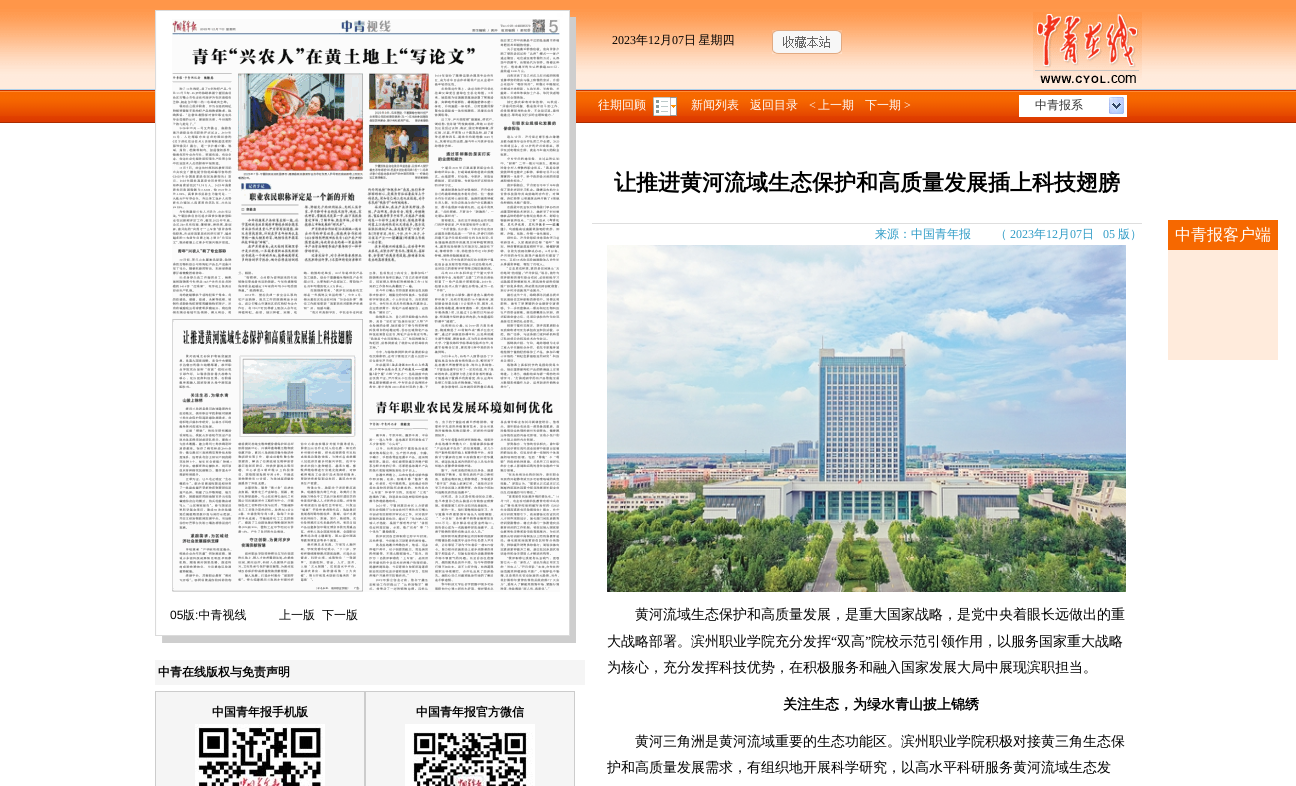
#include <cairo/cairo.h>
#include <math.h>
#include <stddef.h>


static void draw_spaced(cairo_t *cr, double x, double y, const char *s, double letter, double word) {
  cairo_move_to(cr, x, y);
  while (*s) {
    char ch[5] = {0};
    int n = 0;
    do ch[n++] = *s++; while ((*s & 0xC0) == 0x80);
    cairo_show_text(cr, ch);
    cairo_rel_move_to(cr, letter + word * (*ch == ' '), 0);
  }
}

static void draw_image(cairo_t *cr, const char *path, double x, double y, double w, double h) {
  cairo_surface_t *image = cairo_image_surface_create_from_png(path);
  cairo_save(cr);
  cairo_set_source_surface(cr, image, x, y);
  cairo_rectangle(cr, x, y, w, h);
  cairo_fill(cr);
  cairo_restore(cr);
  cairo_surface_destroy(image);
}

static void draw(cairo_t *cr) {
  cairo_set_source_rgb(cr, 1, 1, 1);
  cairo_paint(cr);
  draw_image(cr, "images/1.png", 0, 0, 1296, 89);
  cairo_set_source_rgb(cr, 172 / 255.0, 208 / 255.0, 234 / 255.0);
  cairo_rectangle(cr, 0, 89, 1296, 1);
  cairo_fill(cr);
  draw_image(cr, "images/11.png", 0, 90, 1296, 33);
  draw_image(cr, "images/2.png", 155, 10, 421, 633);
  draw_image(cr, "images/3.png", 172, 19, 388, 573);
  cairo_set_source_rgb(cr, 245 / 255.0, 245 / 255.0, 245 / 255.0);
  cairo_rectangle(cr, 155, 660, 430, 25);
  cairo_fill(cr);
  cairo_rectangle(cr, 156, 692, 418, 94);
  cairo_fill(cr);
  cairo_rectangle(cr, 155.5, 691.5, 209, 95);
  cairo_set_source_rgb(cr, 204 / 255.0, 204 / 255.0, 204 / 255.0);
  cairo_set_line_width(cr, 1);
  cairo_stroke(cr);
  draw_image(cr, "images/4.png", 195, 724, 130, 62);
  cairo_rectangle(cr, 365.5, 691.5, 209, 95);
  cairo_stroke(cr);
  draw_image(cr, "images/5.png", 405, 724, 130, 62);
  draw_image(cr, "images/6.png", 772, 30, 70, 24);
  draw_image(cr, "images/7.png", 1033, 12, 109, 72);
  draw_image(cr, "images/8.png", 653, 97, 24, 19);
  cairo_set_source_rgb(cr, 1, 1, 1);
  cairo_rectangle(cr, 1019, 95, 108, 22);
  cairo_fill(cr);
  draw_image(cr, "images/9.png", 1109, 97, 15, 17);
  cairo_set_source_rgb(cr, 222 / 255.0, 222 / 255.0, 222 / 255.0);
  cairo_rectangle(cr, 592, 223, 550, 1);
  cairo_fill(cr);
  draw_image(cr, "images/10.png", 607, 245, 519, 347);
  cairo_set_source_rgb(cr, 1, 235 / 255.0, 220 / 255.0);
  cairo_rectangle(cr, 1168, 250, 110, 110);
  cairo_fill(cr);
  cairo_set_source_rgb(cr, 246 / 255.0, 104 / 255.0, 0);
  cairo_rectangle(cr, 1168, 220, 110, 30);
  cairo_fill(cr);
  cairo_select_font_face(cr, "Liberation Sans", CAIRO_FONT_SLANT_NORMAL, CAIRO_FONT_WEIGHT_NORMAL);
  cairo_set_font_size(cr, 12);
  cairo_set_source_rgb(cr, 0, 0, 0);
  cairo_move_to(cr, 170, 619);
  cairo_show_text(cr, "05");
  cairo_select_font_face(cr, "WenQuanYi Zen Hei Medium", CAIRO_FONT_SLANT_NORMAL, CAIRO_FONT_WEIGHT_NORMAL);
  cairo_move_to(cr, 183, 619);
  cairo_show_text(cr, "版 中青视线");
  cairo_move_to(cr, 279, 619);
  cairo_show_text(cr, "上一版");
  cairo_move_to(cr, 322, 619);
  cairo_show_text(cr, "下一版");
  cairo_select_font_face(cr, "Liberation Sans", CAIRO_FONT_SLANT_NORMAL, CAIRO_FONT_WEIGHT_NORMAL);
  cairo_move_to(cr, 195, 619);
  cairo_show_text(cr, ":");
  cairo_select_font_face(cr, "WenQuanYi Zen Hei", CAIRO_FONT_SLANT_NORMAL, CAIRO_FONT_WEIGHT_BOLD);
  cairo_move_to(cr, 158, 676);
  cairo_show_text(cr, "中青在线版权与免责声明");
  cairo_move_to(cr, 212, 716);
  cairo_show_text(cr, "中国青年报手机版");
  cairo_move_to(cr, 416, 716);
  cairo_show_text(cr, "中国青年报官方微信");
  cairo_select_font_face(cr, "Liberation Serif", CAIRO_FONT_SLANT_NORMAL, CAIRO_FONT_WEIGHT_NORMAL);
  cairo_move_to(cr, 612, 44);
  cairo_show_text(cr, "2023");
  cairo_select_font_face(cr, "WenQuanYi Zen Hei Medium", CAIRO_FONT_SLANT_NORMAL, CAIRO_FONT_WEIGHT_NORMAL);
  cairo_move_to(cr, 636, 44);
  cairo_show_text(cr, "年");
  cairo_select_font_face(cr, "Liberation Serif", CAIRO_FONT_SLANT_NORMAL, CAIRO_FONT_WEIGHT_NORMAL);
  cairo_move_to(cr, 648, 44);
  cairo_show_text(cr, "12");
  cairo_select_font_face(cr, "WenQuanYi Zen Hei Medium", CAIRO_FONT_SLANT_NORMAL, CAIRO_FONT_WEIGHT_NORMAL);
  cairo_move_to(cr, 660, 44);
  cairo_show_text(cr, "月");
  cairo_select_font_face(cr, "Liberation Serif", CAIRO_FONT_SLANT_NORMAL, CAIRO_FONT_WEIGHT_NORMAL);
  cairo_move_to(cr, 672, 44);
  cairo_show_text(cr, "07");
  cairo_select_font_face(cr, "WenQuanYi Zen Hei Medium", CAIRO_FONT_SLANT_NORMAL, CAIRO_FONT_WEIGHT_NORMAL);
  draw_spaced(cr, 684, 44, "日 星期四", 0, -1);
  cairo_set_source_rgb(cr, 1, 1, 1);
  cairo_move_to(cr, 598, 109);
  cairo_show_text(cr, "往期回顾");
  cairo_move_to(cr, 691, 109);
  cairo_show_text(cr, "新闻列表");
  cairo_move_to(cr, 750, 109);
  cairo_show_text(cr, "返回目录");
  cairo_select_font_face(cr, "Liberation Serif", CAIRO_FONT_SLANT_NORMAL, CAIRO_FONT_WEIGHT_NORMAL);
  cairo_move_to(cr, 809, 109);
  cairo_show_text(cr, "<");
  cairo_select_font_face(cr, "WenQuanYi Zen Hei Medium", CAIRO_FONT_SLANT_NORMAL, CAIRO_FONT_WEIGHT_NORMAL);
  cairo_move_to(cr, 818, 109);
  cairo_show_text(cr, "上一期");
  cairo_move_to(cr, 865, 109);
  cairo_show_text(cr, "下一期");
  cairo_select_font_face(cr, "Liberation Serif", CAIRO_FONT_SLANT_NORMAL, CAIRO_FONT_WEIGHT_NORMAL);
  cairo_move_to(cr, 904, 109);
  cairo_show_text(cr, ">");
  cairo_select_font_face(cr, "WenQuanYi Zen Hei Medium", CAIRO_FONT_SLANT_NORMAL, CAIRO_FONT_WEIGHT_NORMAL);
  cairo_set_source_rgb(cr, 51 / 255.0, 51 / 255.0, 51 / 255.0);
  cairo_move_to(cr, 1035, 109);
  cairo_show_text(cr, "中青报系");
  cairo_select_font_face(cr, "WenQuanYi Zen Hei", CAIRO_FONT_SLANT_NORMAL, CAIRO_FONT_WEIGHT_BOLD);
  cairo_set_font_size(cr, 22);
  cairo_set_source_rgb(cr, 0, 0, 0);
  cairo_move_to(cr, 614, 190);
  cairo_show_text(cr, "让推进黄河流域生态保护和高质量发展插上科技翅膀");
  cairo_select_font_face(cr, "WenQuanYi Zen Hei Medium", CAIRO_FONT_SLANT_NORMAL, CAIRO_FONT_WEIGHT_NORMAL);
  cairo_set_font_size(cr, 12);
  cairo_set_source_rgb(cr, 46 / 255.0, 155 / 255.0, 198 / 255.0);
  cairo_move_to(cr, 875, 238);
  cairo_show_text(cr, "来源：中国青年报　　（");
  cairo_select_font_face(cr, "Liberation Serif", CAIRO_FONT_SLANT_NORMAL, CAIRO_FONT_WEIGHT_NORMAL);
  cairo_move_to(cr, 1010, 238);
  cairo_show_text(cr, "2023");
  cairo_select_font_face(cr, "WenQuanYi Zen Hei Medium", CAIRO_FONT_SLANT_NORMAL, CAIRO_FONT_WEIGHT_NORMAL);
  cairo_move_to(cr, 1034, 238);
  cairo_show_text(cr, "年");
  cairo_select_font_face(cr, "Liberation Serif", CAIRO_FONT_SLANT_NORMAL, CAIRO_FONT_WEIGHT_NORMAL);
  cairo_move_to(cr, 1046, 238);
  cairo_show_text(cr, "12");
  cairo_select_font_face(cr, "WenQuanYi Zen Hei Medium", CAIRO_FONT_SLANT_NORMAL, CAIRO_FONT_WEIGHT_NORMAL);
  cairo_move_to(cr, 1058, 238);
  cairo_show_text(cr, "月");
  cairo_select_font_face(cr, "Liberation Serif", CAIRO_FONT_SLANT_NORMAL, CAIRO_FONT_WEIGHT_NORMAL);
  cairo_move_to(cr, 1070, 238);
  cairo_show_text(cr, "07");
  cairo_select_font_face(cr, "WenQuanYi Zen Hei Medium", CAIRO_FONT_SLANT_NORMAL, CAIRO_FONT_WEIGHT_NORMAL);
  cairo_move_to(cr, 1082, 238);
  cairo_show_text(cr, "日");
  cairo_select_font_face(cr, "Liberation Serif", CAIRO_FONT_SLANT_NORMAL, CAIRO_FONT_WEIGHT_NORMAL);
  cairo_move_to(cr, 1103, 238);
  cairo_show_text(cr, "05");
  cairo_select_font_face(cr, "WenQuanYi Zen Hei Medium", CAIRO_FONT_SLANT_NORMAL, CAIRO_FONT_WEIGHT_NORMAL);
  cairo_move_to(cr, 1118, 238);
  cairo_show_text(cr, "版）");
  cairo_set_font_size(cr, 14);
  cairo_set_source_rgb(cr, 0, 0, 0);
  cairo_move_to(cr, 635, 619);
  cairo_show_text(cr, "黄河流域生态保护和高质量发展，是重大国家战略，是党中央着眼长远做出的重");
  cairo_move_to(cr, 607, 646);
  cairo_show_text(cr, "大战略部署。滨州职业学院充分发挥");
  cairo_select_font_face(cr, "Liberation Serif", CAIRO_FONT_SLANT_NORMAL, CAIRO_FONT_WEIGHT_NORMAL);
  cairo_move_to(cr, 831, 646);
  cairo_show_text(cr, "“");
  cairo_select_font_face(cr, "WenQuanYi Zen Hei Medium", CAIRO_FONT_SLANT_NORMAL, CAIRO_FONT_WEIGHT_NORMAL);
  cairo_move_to(cr, 837, 646);
  cairo_show_text(cr, "双高");
  cairo_select_font_face(cr, "Liberation Serif", CAIRO_FONT_SLANT_NORMAL, CAIRO_FONT_WEIGHT_NORMAL);
  cairo_move_to(cr, 865, 646);
  cairo_show_text(cr, "”");
  cairo_select_font_face(cr, "WenQuanYi Zen Hei Medium", CAIRO_FONT_SLANT_NORMAL, CAIRO_FONT_WEIGHT_NORMAL);
  cairo_move_to(cr, 871, 646);
  cairo_show_text(cr, "院校示范引领作用，以服务国家重大战略");
  cairo_move_to(cr, 607, 672);
  cairo_show_text(cr, "为核心，充分发挥科技优势，在积极服务和融入国家发展大局中展现滨职担当。");
  cairo_select_font_face(cr, "WenQuanYi Zen Hei", CAIRO_FONT_SLANT_NORMAL, CAIRO_FONT_WEIGHT_BOLD);
  cairo_move_to(cr, 783, 709);
  cairo_show_text(cr, "关注生态，为绿水青山披上锦绣");
  cairo_select_font_face(cr, "WenQuanYi Zen Hei Medium", CAIRO_FONT_SLANT_NORMAL, CAIRO_FONT_WEIGHT_NORMAL);
  cairo_move_to(cr, 635, 746);
  cairo_show_text(cr, "黄河三角洲是黄河流域重要的生态功能区。滨州职业学院积极对接黄三角生态保");
  cairo_move_to(cr, 607, 772);
  cairo_show_text(cr, "护和高质量发展需求，有组织地开展科学研究，以高水平科研服务黄河流域生态发");
  cairo_set_font_size(cr, 16);
  cairo_set_source_rgb(cr, 1, 1, 1);
  cairo_move_to(cr, 1175, 240);
  cairo_show_text(cr, "中青报客户端");
}

int main(void) {
  cairo_surface_t *surface = cairo_image_surface_create(CAIRO_FORMAT_RGB24, 1296, 786);
  cairo_t *cr = cairo_create(surface);
  cairo_font_options_t *options = cairo_font_options_create();
  cairo_font_options_set_hint_metrics(options, CAIRO_HINT_METRICS_OFF);
  cairo_font_options_set_hint_style(options, CAIRO_HINT_STYLE_NONE);
  cairo_set_font_options(cr, options);
  cairo_set_miter_limit(cr, 4);
  draw(cr);
  cairo_surface_write_to_png(surface, "out.png");
  cairo_font_options_destroy(options);
  cairo_destroy(cr);
  cairo_surface_destroy(surface);
  return 0;
}
